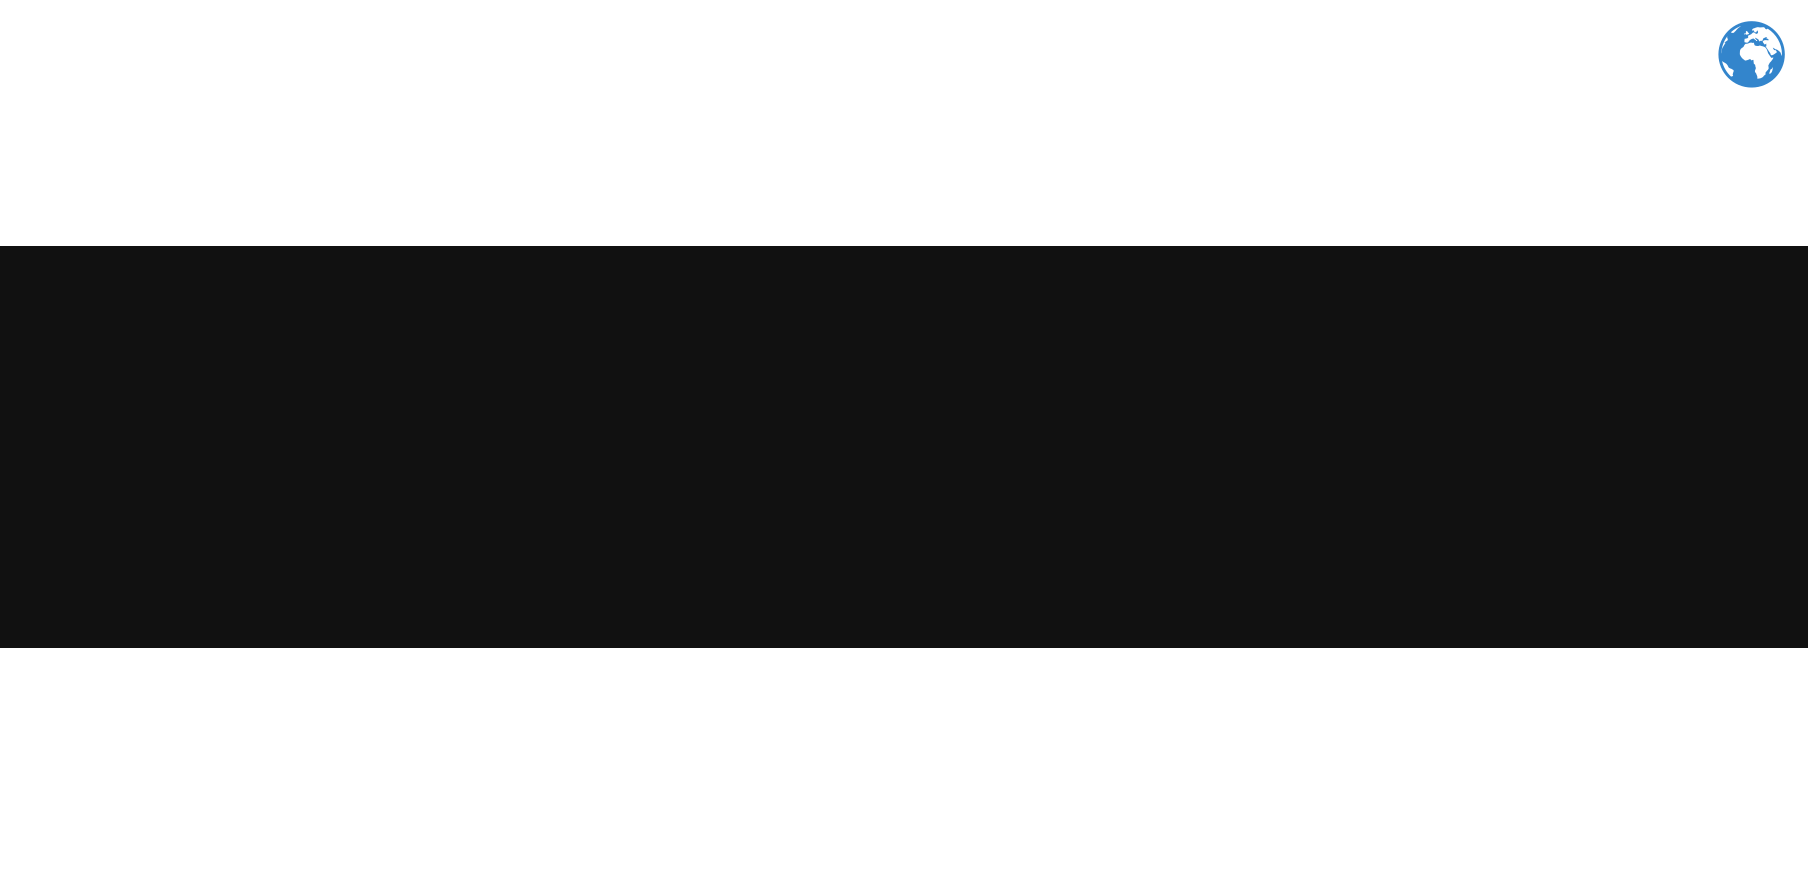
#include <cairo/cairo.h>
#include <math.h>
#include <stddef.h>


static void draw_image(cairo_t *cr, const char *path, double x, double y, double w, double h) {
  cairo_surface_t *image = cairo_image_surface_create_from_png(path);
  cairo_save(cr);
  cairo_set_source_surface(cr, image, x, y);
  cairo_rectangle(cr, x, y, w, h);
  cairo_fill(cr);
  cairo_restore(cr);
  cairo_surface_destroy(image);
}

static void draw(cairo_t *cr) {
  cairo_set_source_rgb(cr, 1, 1, 1);
  cairo_paint(cr);
  draw_image(cr, "images/1.png", 1718, 21, 67, 67);
  cairo_set_source_rgb(cr, 17 / 255.0, 17 / 255.0, 17 / 255.0);
  cairo_rectangle(cr, 0, 246, 1808, 402);
  cairo_fill(cr);
}

int main(void) {
  cairo_surface_t *surface = cairo_image_surface_create(CAIRO_FORMAT_RGB24, 1808, 894);
  cairo_t *cr = cairo_create(surface);
  cairo_font_options_t *options = cairo_font_options_create();
  cairo_font_options_set_hint_metrics(options, CAIRO_HINT_METRICS_OFF);
  cairo_font_options_set_hint_style(options, CAIRO_HINT_STYLE_NONE);
  cairo_set_font_options(cr, options);
  cairo_set_miter_limit(cr, 4);
  draw(cr);
  cairo_surface_write_to_png(surface, "out.png");
  cairo_font_options_destroy(options);
  cairo_destroy(cr);
  cairo_surface_destroy(surface);
  return 0;
}
